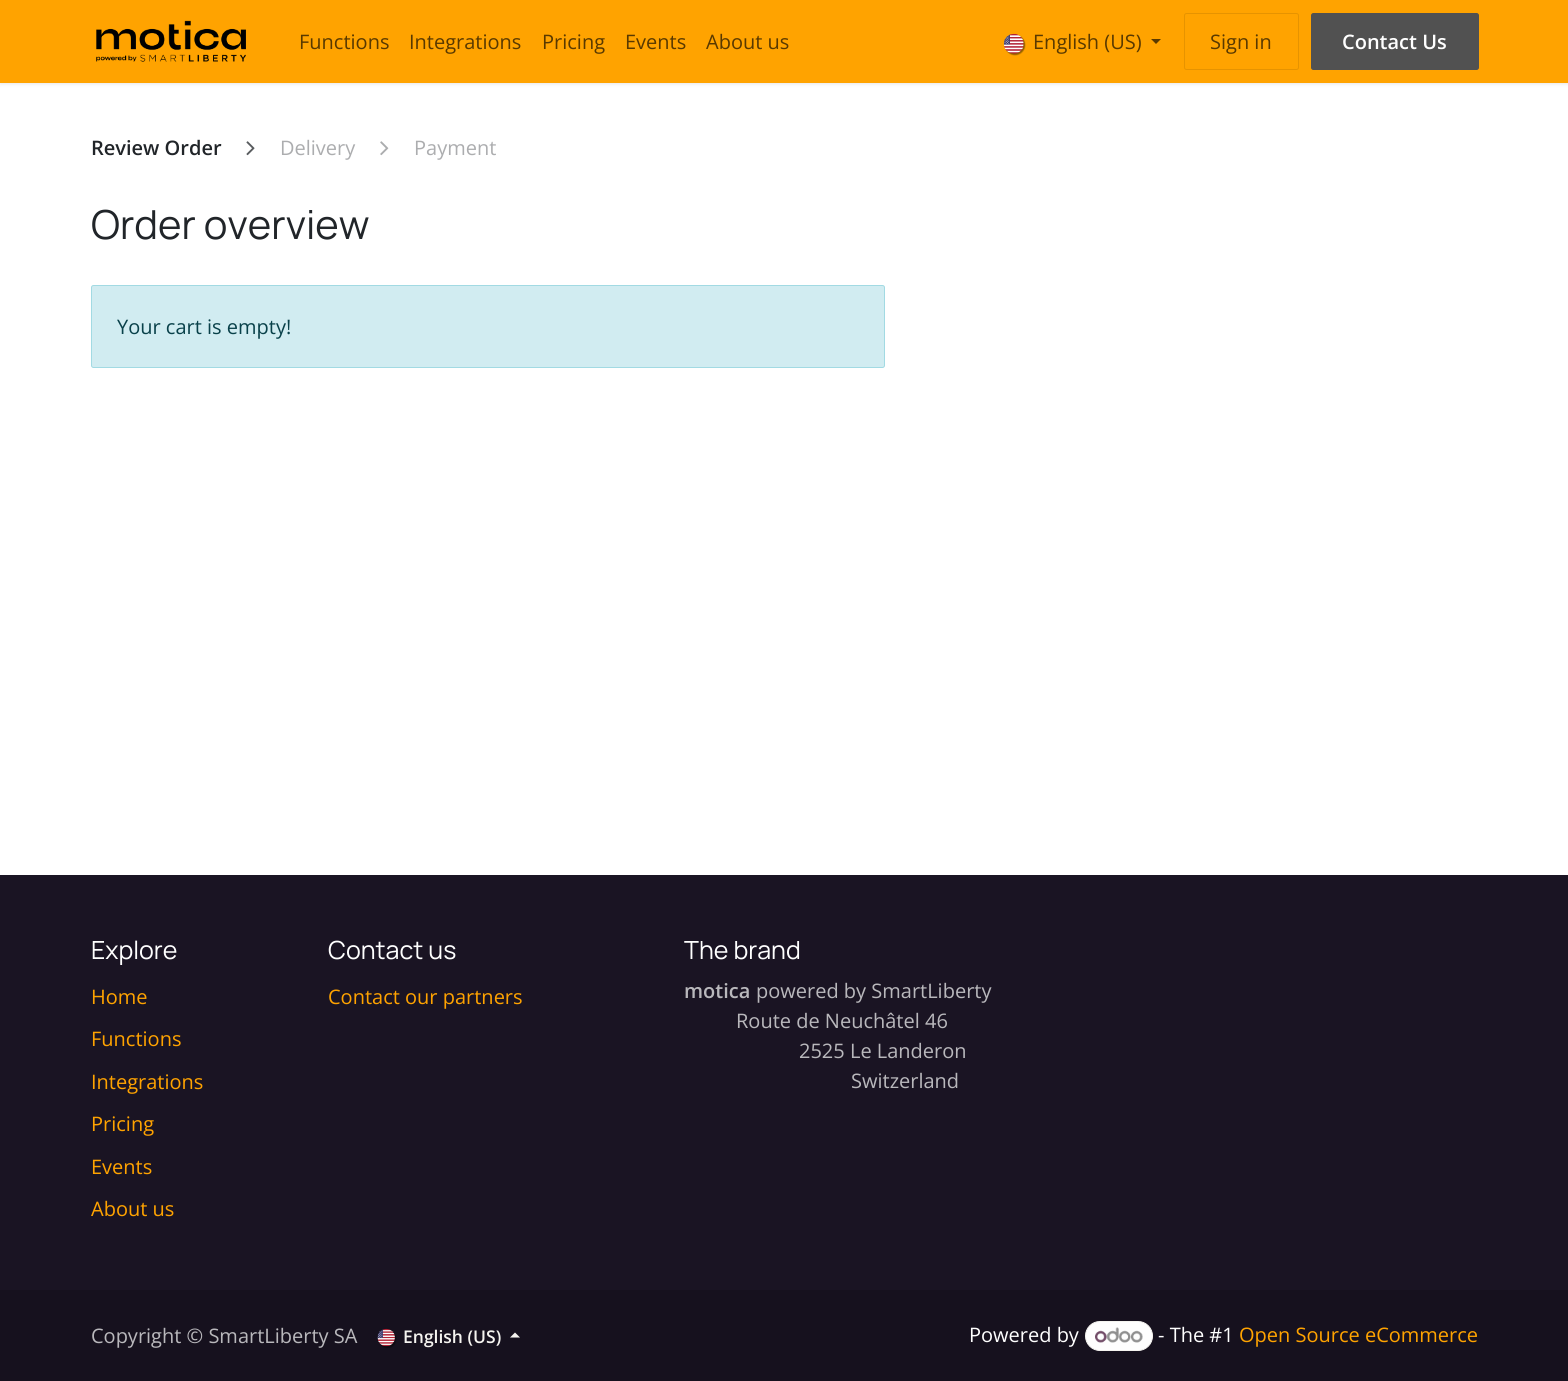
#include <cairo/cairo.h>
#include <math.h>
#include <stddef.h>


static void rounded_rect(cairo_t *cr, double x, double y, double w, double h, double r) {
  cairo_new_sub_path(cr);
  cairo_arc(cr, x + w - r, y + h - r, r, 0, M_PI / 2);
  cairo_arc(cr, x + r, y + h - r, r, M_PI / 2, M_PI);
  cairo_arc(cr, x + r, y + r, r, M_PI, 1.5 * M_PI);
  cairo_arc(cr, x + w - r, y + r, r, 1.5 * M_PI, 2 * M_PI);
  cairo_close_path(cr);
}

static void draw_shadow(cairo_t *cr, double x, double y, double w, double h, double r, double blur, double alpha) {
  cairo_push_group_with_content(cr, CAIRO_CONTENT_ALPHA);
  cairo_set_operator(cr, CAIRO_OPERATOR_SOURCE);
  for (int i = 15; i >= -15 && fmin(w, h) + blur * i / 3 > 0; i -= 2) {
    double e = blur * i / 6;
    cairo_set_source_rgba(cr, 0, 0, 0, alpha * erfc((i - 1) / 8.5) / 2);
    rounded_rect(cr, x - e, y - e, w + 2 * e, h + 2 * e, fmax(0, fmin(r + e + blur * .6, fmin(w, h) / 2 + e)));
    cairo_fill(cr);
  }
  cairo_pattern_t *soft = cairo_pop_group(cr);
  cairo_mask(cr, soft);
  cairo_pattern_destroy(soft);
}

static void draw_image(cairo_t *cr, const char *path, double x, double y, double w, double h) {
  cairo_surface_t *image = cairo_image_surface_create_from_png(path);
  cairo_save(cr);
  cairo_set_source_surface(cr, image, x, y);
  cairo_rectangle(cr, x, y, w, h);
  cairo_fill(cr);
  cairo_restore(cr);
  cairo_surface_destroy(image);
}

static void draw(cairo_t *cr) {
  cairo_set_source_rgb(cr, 1, 1, 1);
  cairo_paint(cr);
  cairo_set_source_rgb(cr, 0, 0, 0);
  draw_shadow(cr, 0, 1, 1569, 83, 0, 2, 0.1);
  cairo_set_source_rgb(cr, 1, 163 / 255.0, 0);
  cairo_rectangle(cr, 0, 0, 1568, 83);
  cairo_fill(cr);
  draw_image(cr, "images/1.png", 96, 20, 150, 42);
  cairo_set_source_rgb(cr, 0, 0, 0);
  draw_shadow(cr, 1005, 35, 20, 20, 10, 0.5, 0.43);
  draw_image(cr, "images/2.png", 1003, 33, 21, 21);
  cairo_set_source_rgb(cr, 89 / 255.0, 57 / 255.0, 0);
  cairo_new_path(cr);
  cairo_move_to(cr, 1151, 39);
  cairo_line_to(cr, 1161, 39);
  cairo_line_to(cr, 1156, 44);
  cairo_close_path(cr);
  cairo_fill(cr);
  rounded_rect(cr, 1184.5, 13.5, 114, 56, 2);
  cairo_set_source_rgb(cr, 230 / 255.0, 147 / 255.0, 0);
  cairo_set_line_width(cr, 1);
  cairo_stroke(cr);
  cairo_set_source_rgb(cr, 81 / 255.0, 81 / 255.0, 81 / 255.0);
  rounded_rect(cr, 1311.5, 13.5, 167, 56, 2);
  cairo_fill_preserve(cr);
  cairo_stroke(cr);
  draw_image(cr, "images/3.png", 246, 141, 9, 15);
  draw_image(cr, "images/4.png", 380, 141, 9, 15);
  cairo_set_source_rgb(cr, 209 / 255.0, 236 / 255.0, 241 / 255.0);
  rounded_rect(cr, 91.5, 285.5, 793, 82, 2);
  cairo_fill_preserve(cr);
  cairo_set_source_rgb(cr, 162 / 255.0, 218 / 255.0, 227 / 255.0);
  cairo_stroke(cr);
  cairo_set_source_rgb(cr, 26 / 255.0, 20 / 255.0, 35 / 255.0);
  cairo_rectangle(cr, 0, 875, 1568, 415);
  cairo_fill(cr);
  cairo_set_source_rgb(cr, 22 / 255.0, 17 / 255.0, 30 / 255.0);
  cairo_rectangle(cr, 0, 1290, 1568, 91);
  cairo_fill(cr);
  cairo_set_source_rgb(cr, 0, 0, 0);
  draw_shadow(cr, 379, 1330, 17, 18, 8.5, 0.5, 0.43);
  draw_image(cr, "images/5.png", 377, 1328, 18, 19);
  cairo_set_source_rgb(cr, 245 / 255.0, 244 / 255.0, 240 / 255.0);
  cairo_new_path(cr);
  cairo_move_to(cr, 520, 1337.5);
  cairo_line_to(cr, 510, 1337.5);
  cairo_line_to(cr, 515, 1332.5);
  cairo_close_path(cr);
  cairo_fill(cr);
  cairo_set_source_rgb(cr, 254 / 255.0, 254 / 255.0, 254 / 255.0);
  rounded_rect(cr, 1085.5, 1321.5, 67, 29, 14.5);
  cairo_fill_preserve(cr);
  cairo_set_source_rgb(cr, 245 / 255.0, 244 / 255.0, 240 / 255.0);
  cairo_stroke(cr);
  draw_image(cr, "images/6.png", 1095, 1327, 48, 16);
  cairo_select_font_face(cr, "Open Sans", CAIRO_FONT_SLANT_NORMAL, CAIRO_FONT_WEIGHT_NORMAL);
  cairo_set_font_size(cr, 20);
  cairo_set_source_rgb(cr, 89 / 255.0, 57 / 255.0, 0);
  cairo_move_to(cr, 299, 49);
  cairo_show_text(cr, "Functions");
  cairo_move_to(cr, 409, 49);
  cairo_show_text(cr, "Integrations");
  cairo_move_to(cr, 542, 49);
  cairo_show_text(cr, "Pricing");
  cairo_move_to(cr, 625, 49);
  cairo_show_text(cr, "Events");
  cairo_move_to(cr, 706, 49);
  cairo_show_text(cr, "About us");
  cairo_move_to(cr, 1033, 49);
  cairo_show_text(cr, "English (US)");
  cairo_move_to(cr, 1210, 49);
  cairo_show_text(cr, "Sign in");
  cairo_select_font_face(cr, "Open Sans SemiBold", CAIRO_FONT_SLANT_NORMAL, CAIRO_FONT_WEIGHT_NORMAL);
  cairo_set_source_rgb(cr, 1, 1, 1);
  cairo_move_to(cr, 1342, 49);
  cairo_show_text(cr, "Contact Us");
  cairo_set_source_rgb(cr, 33 / 255.0, 37 / 255.0, 41 / 255.0);
  cairo_move_to(cr, 91, 155);
  cairo_show_text(cr, "Review Order");
  cairo_select_font_face(cr, "Open Sans", CAIRO_FONT_SLANT_NORMAL, CAIRO_FONT_WEIGHT_NORMAL);
  cairo_set_source_rgb(cr, 172 / 255.0, 173 / 255.0, 175 / 255.0);
  cairo_move_to(cr, 280, 155);
  cairo_show_text(cr, "Delivery");
  cairo_move_to(cr, 414, 155);
  cairo_show_text(cr, "Payment");
  cairo_select_font_face(cr, "Manrope", CAIRO_FONT_SLANT_NORMAL, CAIRO_FONT_WEIGHT_NORMAL);
  cairo_set_font_size(cr, 40);
  cairo_set_source_rgb(cr, 33 / 255.0, 37 / 255.0, 41 / 255.0);
  cairo_move_to(cr, 91, 239);
  cairo_show_text(cr, "Order overview");
  cairo_select_font_face(cr, "Open Sans", CAIRO_FONT_SLANT_NORMAL, CAIRO_FONT_WEIGHT_NORMAL);
  cairo_set_font_size(cr, 20);
  cairo_set_source_rgb(cr, 9 / 255.0, 65 / 255.0, 74 / 255.0);
  cairo_move_to(cr, 117, 334);
  cairo_show_text(cr, "Your cart is empty!");
  cairo_select_font_face(cr, "Manrope", CAIRO_FONT_SLANT_NORMAL, CAIRO_FONT_WEIGHT_NORMAL);
  cairo_set_font_size(cr, 25);
  cairo_set_source_rgb(cr, 1, 1, 1);
  cairo_move_to(cr, 91, 959);
  cairo_show_text(cr, "Explore");
  cairo_select_font_face(cr, "Open Sans", CAIRO_FONT_SLANT_NORMAL, CAIRO_FONT_WEIGHT_NORMAL);
  cairo_set_font_size(cr, 20);
  cairo_set_source_rgb(cr, 1, 163 / 255.0, 0);
  cairo_move_to(cr, 91, 1004);
  cairo_show_text(cr, "Home");
  cairo_move_to(cr, 91, 1046);
  cairo_show_text(cr, "Functions");
  cairo_move_to(cr, 91, 1089);
  cairo_show_text(cr, "Integrations");
  cairo_move_to(cr, 91, 1131);
  cairo_show_text(cr, "Pricing");
  cairo_move_to(cr, 91, 1174);
  cairo_show_text(cr, "Events");
  cairo_move_to(cr, 91, 1216);
  cairo_show_text(cr, "About us");
  cairo_select_font_face(cr, "Manrope", CAIRO_FONT_SLANT_NORMAL, CAIRO_FONT_WEIGHT_NORMAL);
  cairo_set_font_size(cr, 25);
  cairo_set_source_rgb(cr, 1, 1, 1);
  cairo_move_to(cr, 328, 959);
  cairo_show_text(cr, "Contact us");
  cairo_select_font_face(cr, "Open Sans", CAIRO_FONT_SLANT_NORMAL, CAIRO_FONT_WEIGHT_NORMAL);
  cairo_set_font_size(cr, 20);
  cairo_set_source_rgb(cr, 1, 163 / 255.0, 0);
  cairo_move_to(cr, 328, 1004);
  cairo_show_text(cr, "Contact our partners");
  cairo_select_font_face(cr, "Manrope", CAIRO_FONT_SLANT_NORMAL, CAIRO_FONT_WEIGHT_NORMAL);
  cairo_set_font_size(cr, 25);
  cairo_set_source_rgb(cr, 1, 1, 1);
  cairo_move_to(cr, 684, 959);
  cairo_show_text(cr, "The brand");
  cairo_select_font_face(cr, "Open Sans SemiBold", CAIRO_FONT_SLANT_NORMAL, CAIRO_FONT_WEIGHT_NORMAL);
  cairo_set_font_size(cr, 20);
  cairo_set_source_rgb(cr, 185 / 255.0, 184 / 255.0, 188 / 255.0);
  cairo_move_to(cr, 684, 998);
  cairo_show_text(cr, "motica");
  cairo_select_font_face(cr, "Open Sans", CAIRO_FONT_SLANT_NORMAL, CAIRO_FONT_WEIGHT_NORMAL);
  cairo_move_to(cr, 756, 998);
  cairo_show_text(cr, "powered by SmartLiberty");
  cairo_move_to(cr, 736, 1028);
  cairo_show_text(cr, "Route de Neuchâtel 46");
  cairo_move_to(cr, 799, 1058);
  cairo_show_text(cr, "2525 Le Landeron");
  cairo_move_to(cr, 851, 1088);
  cairo_show_text(cr, "Switzerland");
  cairo_move_to(cr, 91, 1343);
  cairo_show_text(cr, "Copyright © SmartLiberty SA");
  cairo_select_font_face(cr, "Open Sans SemiBold", CAIRO_FONT_SLANT_NORMAL, CAIRO_FONT_WEIGHT_NORMAL);
  cairo_set_font_size(cr, 17.5);
  cairo_set_source_rgb(cr, 245 / 255.0, 244 / 255.0, 240 / 255.0);
  cairo_move_to(cr, 403, 1343);
  cairo_show_text(cr, "English (US)");
  cairo_select_font_face(cr, "Open Sans", CAIRO_FONT_SLANT_NORMAL, CAIRO_FONT_WEIGHT_NORMAL);
  cairo_set_font_size(cr, 20);
  cairo_set_source_rgb(cr, 1, 1, 1);
  cairo_move_to(cr, 969, 1342);
  cairo_show_text(cr, "Powered by");
  cairo_move_to(cr, 1158, 1342);
  cairo_show_text(cr, "- The #1");
  cairo_set_source_rgb(cr, 1, 163 / 255.0, 0);
  cairo_move_to(cr, 1239, 1342);
  cairo_show_text(cr, "Open Source eCommerce");
}

int main(void) {
  cairo_surface_t *surface = cairo_image_surface_create(CAIRO_FORMAT_RGB24, 1568, 1381);
  cairo_t *cr = cairo_create(surface);
  cairo_font_options_t *options = cairo_font_options_create();
  cairo_font_options_set_hint_metrics(options, CAIRO_HINT_METRICS_OFF);
  cairo_font_options_set_hint_style(options, CAIRO_HINT_STYLE_NONE);
  cairo_set_font_options(cr, options);
  cairo_set_miter_limit(cr, 4);
  draw(cr);
  cairo_surface_write_to_png(surface, "out.png");
  cairo_font_options_destroy(options);
  cairo_destroy(cr);
  cairo_surface_destroy(surface);
  return 0;
}
